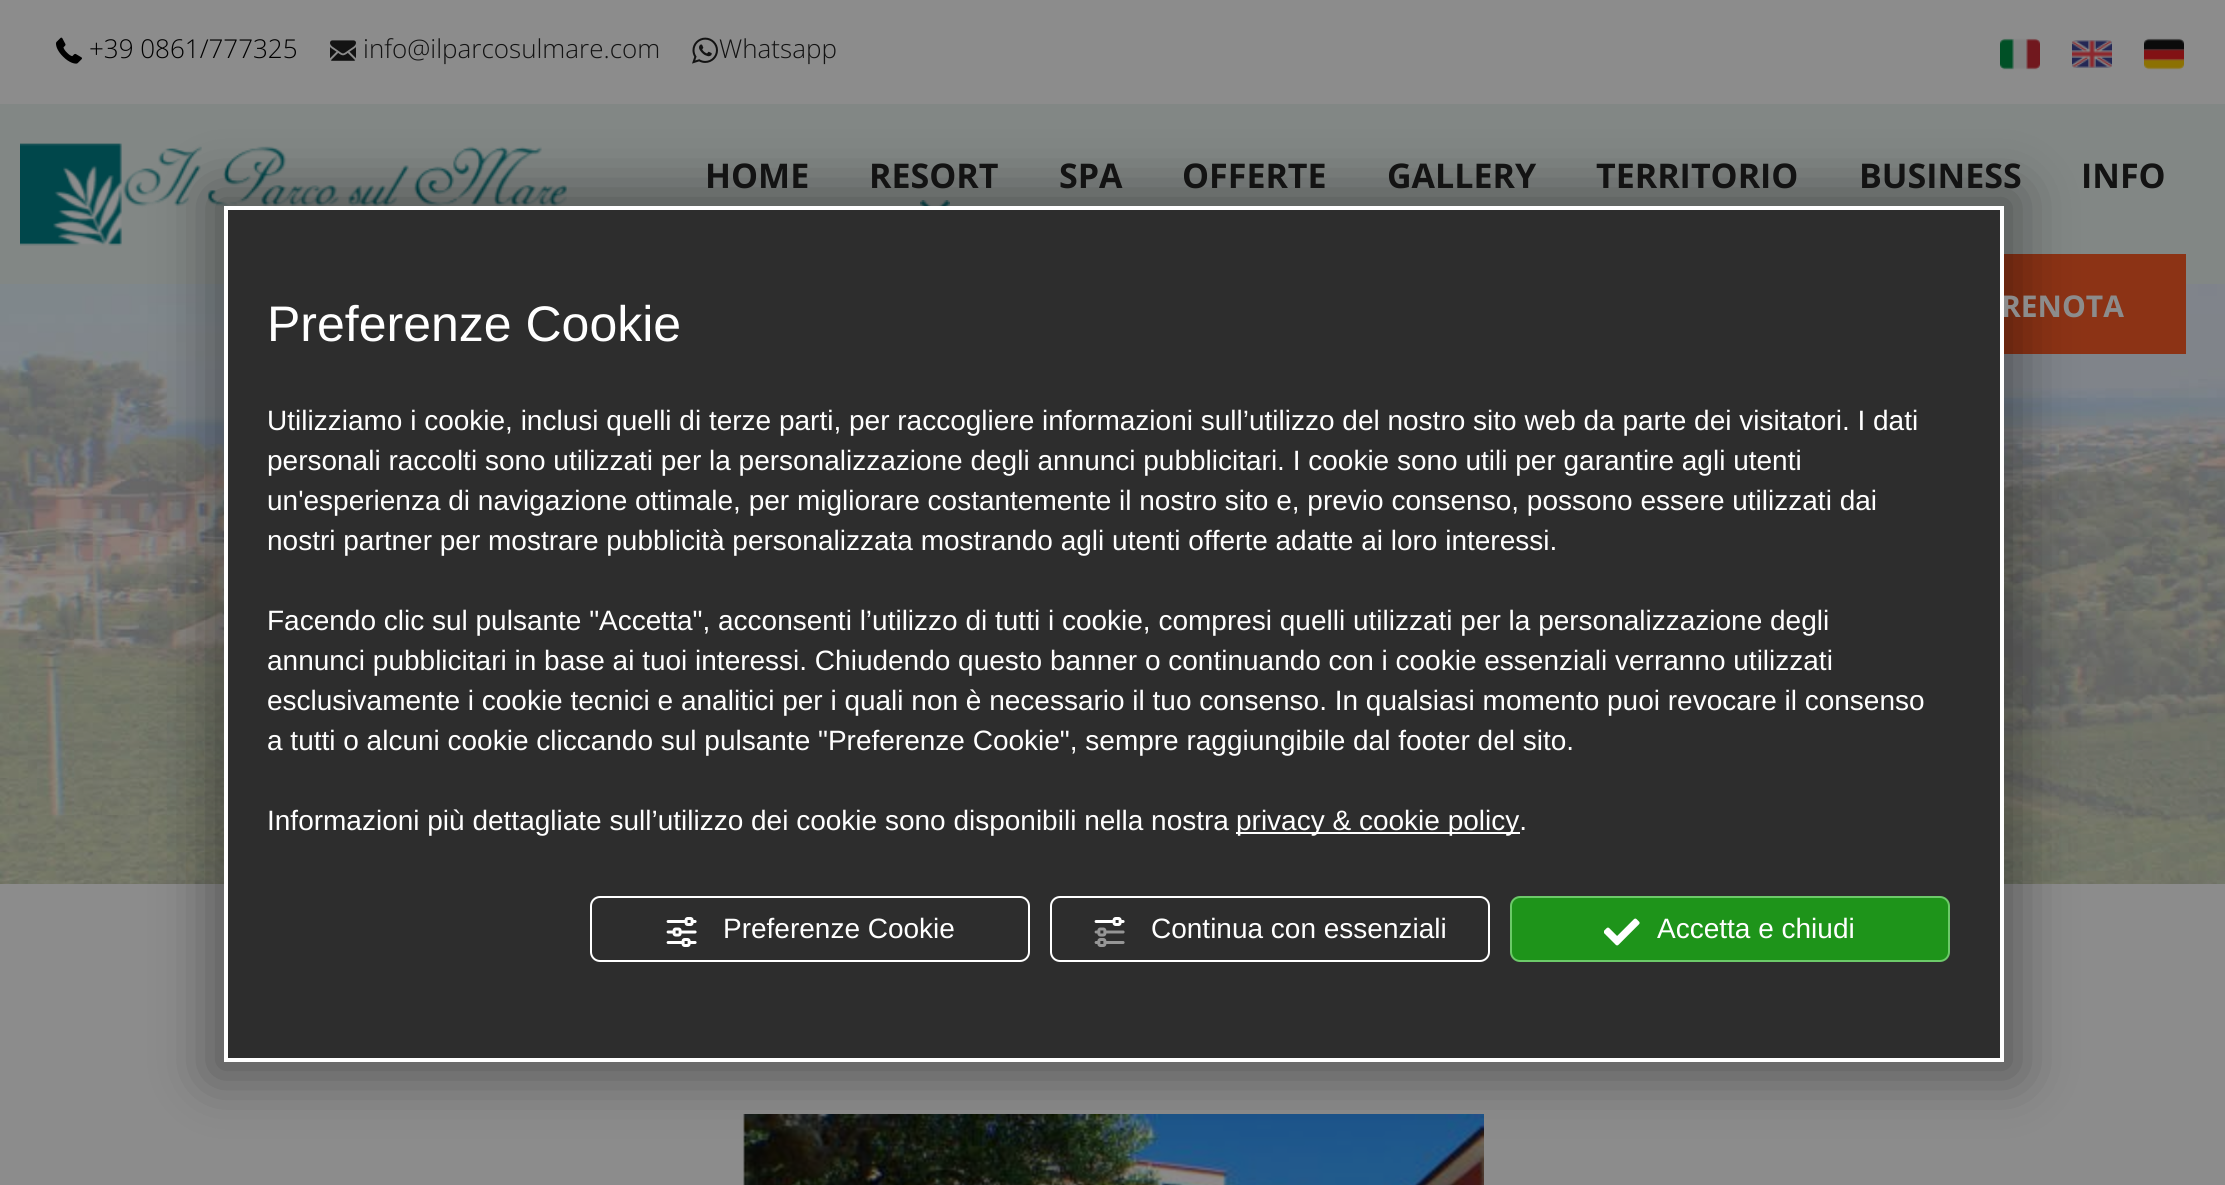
#include <cairo/cairo.h>
#include <math.h>
#include <stddef.h>


static void rounded_rect(cairo_t *cr, double x, double y, double w, double h, double r) {
  cairo_new_sub_path(cr);
  cairo_arc(cr, x + w - r, y + h - r, r, 0, M_PI / 2);
  cairo_arc(cr, x + r, y + h - r, r, M_PI / 2, M_PI);
  cairo_arc(cr, x + r, y + r, r, M_PI, 1.5 * M_PI);
  cairo_arc(cr, x + w - r, y + r, r, 1.5 * M_PI, 2 * M_PI);
  cairo_close_path(cr);
}

static void draw_shadow(cairo_t *cr, double x, double y, double w, double h, double r, double blur, double alpha) {
  cairo_push_group_with_content(cr, CAIRO_CONTENT_ALPHA);
  cairo_set_operator(cr, CAIRO_OPERATOR_SOURCE);
  for (int i = 15; i >= -15 && fmin(w, h) + blur * i / 3 > 0; i -= 2) {
    double e = blur * i / 6;
    cairo_set_source_rgba(cr, 0, 0, 0, alpha * erfc((i - 1) / 8.5) / 2);
    rounded_rect(cr, x - e, y - e, w + 2 * e, h + 2 * e, fmax(0, fmin(r + e + blur * .6, fmin(w, h) / 2 + e)));
    cairo_fill(cr);
  }
  cairo_pattern_t *soft = cairo_pop_group(cr);
  cairo_mask(cr, soft);
  cairo_pattern_destroy(soft);
}

static void draw_image(cairo_t *cr, const char *path, double x, double y, double w, double h) {
  cairo_surface_t *image = cairo_image_surface_create_from_png(path);
  cairo_save(cr);
  cairo_set_source_surface(cr, image, x, y);
  cairo_rectangle(cr, x, y, w, h);
  cairo_fill(cr);
  cairo_restore(cr);
  cairo_surface_destroy(image);
}

static void draw(cairo_t *cr) {
  cairo_set_source_rgb(cr, 140 / 255.0, 140 / 255.0, 140 / 255.0);
  cairo_paint(cr);
  draw_image(cr, "images/1.png", 56, 37, 26, 27);
  draw_image(cr, "images/2.png", 330, 40, 26, 21);
  draw_image(cr, "images/3.png", 692, 37, 26, 27);
  draw_image(cr, "images/4.png", 2000, 38, 40, 32);
  draw_image(cr, "images/5.png", 2072, 40, 40, 28);
  draw_image(cr, "images/6.png", 2144, 38, 40, 32);
  cairo_set_source_rgb(cr, 130 / 255.0, 135 / 255.0, 133 / 255.0);
  cairo_rectangle(cr, 0, 104, 2225, 180);
  cairo_fill(cr);
  draw_image(cr, "images/7.png", 20, 143, 547, 103);
  draw_image(cr, "images/8.png", 920, 200, 30, 6);
  draw_image(cr, "images/9.png", 0, 284, 2225, 600);
  cairo_set_source_rgb(cr, 140 / 255.0, 51 / 255.0, 21 / 255.0);
  cairo_rectangle(cr, 2004, 254, 182, 100);
  cairo_fill(cr);
  draw_image(cr, "images/10.png", 743, 1114, 741, 71);
  cairo_set_source_rgb(cr, 0, 0, 0);
  draw_shadow(cr, 210, 192, 1808, 884, 0, 29, 0.38);
  cairo_select_font_face(cr, "Open Sans Light", CAIRO_FONT_SLANT_NORMAL, CAIRO_FONT_WEIGHT_NORMAL);
  cairo_set_font_size(cr, 26);
  cairo_set_source_rgb(cr, 0, 0, 0);
  cairo_move_to(cr, 89, 58);
  cairo_show_text(cr, "+39 0861/777325");
  cairo_set_source_rgb(cr, 19 / 255.0, 19 / 255.0, 19 / 255.0);
  cairo_move_to(cr, 363, 58);
  cairo_show_text(cr, "info@ilparcosulmare.com");
  cairo_move_to(cr, 719, 58);
  cairo_show_text(cr, "Whatsapp");
  cairo_select_font_face(cr, "Open Sans", CAIRO_FONT_SLANT_NORMAL, CAIRO_FONT_WEIGHT_BOLD);
  cairo_set_font_size(cr, 34);
  cairo_move_to(cr, 705, 188);
  cairo_show_text(cr, "HOME");
  cairo_move_to(cr, 869, 188);
  cairo_show_text(cr, "RESORT");
  cairo_move_to(cr, 1059, 188);
  cairo_show_text(cr, "SPA");
  cairo_move_to(cr, 1182, 188);
  cairo_show_text(cr, "OFFERTE");
  cairo_move_to(cr, 1387, 188);
  cairo_show_text(cr, "GALLERY");
  cairo_move_to(cr, 1596, 188);
  cairo_show_text(cr, "TERRITORIO");
  cairo_move_to(cr, 1859, 188);
  cairo_show_text(cr, "BUSINESS");
  cairo_move_to(cr, 2081, 188);
  cairo_show_text(cr, "INFO");
  cairo_set_font_size(cr, 30);
  cairo_set_source_rgb(cr, 140 / 255.0, 140 / 255.0, 140 / 255.0);
  cairo_move_to(cr, 2001, 317);
  cairo_show_text(cr, "RENOTA");
  cairo_set_source_rgb(cr, 45 / 255.0, 45 / 255.0, 45 / 255.0);
  cairo_rectangle(cr, 226, 208, 1776, 852);
  cairo_fill_preserve(cr);
  cairo_set_source_rgb(cr, 1, 1, 1);
  cairo_set_line_width(cr, 4);
  cairo_stroke(cr);
  cairo_select_font_face(cr, "Liberation Sans", CAIRO_FONT_SLANT_NORMAL, CAIRO_FONT_WEIGHT_NORMAL);
  cairo_set_font_size(cr, 50);
  cairo_move_to(cr, 267, 341);
  cairo_show_text(cr, "Preferenze Cookie");
  cairo_set_font_size(cr, 28);
  cairo_move_to(cr, 267, 430);
  cairo_show_text(cr, "Utilizziamo i cookie, inclusi quelli di terze parti, per raccogliere informazioni sull’utilizzo del nostro sito web da parte dei visitatori. I dati");
  cairo_move_to(cr, 267, 470);
  cairo_show_text(cr, "personali raccolti sono utilizzati per la personalizzazione degli annunci pubblicitari. I cookie sono utili per garantire agli utenti");
  cairo_move_to(cr, 267, 510);
  cairo_show_text(cr, "un'esperienza di navigazione ottimale, per migliorare costantemente il nostro sito e, previo consenso, possono essere utilizzati dai");
  cairo_move_to(cr, 267, 550);
  cairo_show_text(cr, "nostri partner per mostrare pubblicità personalizzata mostrando agli utenti offerte adatte ai loro interessi.");
  cairo_move_to(cr, 267, 630);
  cairo_show_text(cr, "Facendo clic sul pulsante \"Accetta\", acconsenti l’utilizzo di tutti i cookie, compresi quelli utilizzati per la personalizzazione degli");
  cairo_move_to(cr, 267, 670);
  cairo_show_text(cr, "annunci pubblicitari in base ai tuoi interessi. Chiudendo questo banner o continuando con i cookie essenziali verranno utilizzati");
  cairo_save(cr);
  cairo_rectangle(cr, 268, 400, 1692, 440);
  cairo_clip(cr);
  cairo_move_to(cr, 267, 710);
  cairo_show_text(cr, "esclusivamente i cookie tecnici e analitici per i quali non è necessario il tuo consenso. In qualsiasi momento puoi revocare il consenso");
  cairo_restore(cr);
  cairo_move_to(cr, 267, 750);
  cairo_show_text(cr, "a tutti o alcuni cookie cliccando sul pulsante \"Preferenze Cookie\", sempre raggiungibile dal footer del sito.");
  cairo_move_to(cr, 267, 830);
  cairo_show_text(cr, "Informazioni più dettagliate sull’utilizzo dei cookie sono disponibili nella nostra");
  cairo_rectangle(cr, 1236, 832, 284, 2);
  cairo_fill(cr);
  cairo_move_to(cr, 1236, 830);
  cairo_show_text(cr, "privacy & cookie policy.");
  rounded_rect(cr, 591, 897, 438, 64, 9);
  cairo_set_line_width(cr, 2);
  cairo_stroke(cr);
  draw_image(cr, "images/11.png", 666, 917, 31, 30);
  cairo_move_to(cr, 723, 938);
  cairo_show_text(cr, "Preferenze Cookie");
  rounded_rect(cr, 1051, 897, 438, 64, 9);
  cairo_stroke(cr);
  draw_image(cr, "images/12.png", 1094, 917, 31, 30);
  cairo_move_to(cr, 1151, 938);
  cairo_show_text(cr, "Continua con essenziali");
  cairo_set_source_rgb(cr, 30 / 255.0, 148 / 255.0, 26 / 255.0);
  rounded_rect(cr, 1511, 897, 438, 64, 9);
  cairo_fill_preserve(cr);
  cairo_set_source_rgb(cr, 108 / 255.0, 202 / 255.0, 105 / 255.0);
  cairo_stroke(cr);
  draw_image(cr, "images/13.png", 1604, 918, 36, 28);
  cairo_set_source_rgb(cr, 1, 1, 1);
  cairo_move_to(cr, 1657, 938);
  cairo_show_text(cr, "Accetta e chiudi");
}

int main(void) {
  cairo_surface_t *surface = cairo_image_surface_create(CAIRO_FORMAT_RGB24, 2225, 1185);
  cairo_t *cr = cairo_create(surface);
  cairo_font_options_t *options = cairo_font_options_create();
  cairo_font_options_set_hint_metrics(options, CAIRO_HINT_METRICS_OFF);
  cairo_font_options_set_hint_style(options, CAIRO_HINT_STYLE_NONE);
  cairo_set_font_options(cr, options);
  cairo_set_miter_limit(cr, 4);
  draw(cr);
  cairo_surface_write_to_png(surface, "out.png");
  cairo_font_options_destroy(options);
  cairo_destroy(cr);
  cairo_surface_destroy(surface);
  return 0;
}
